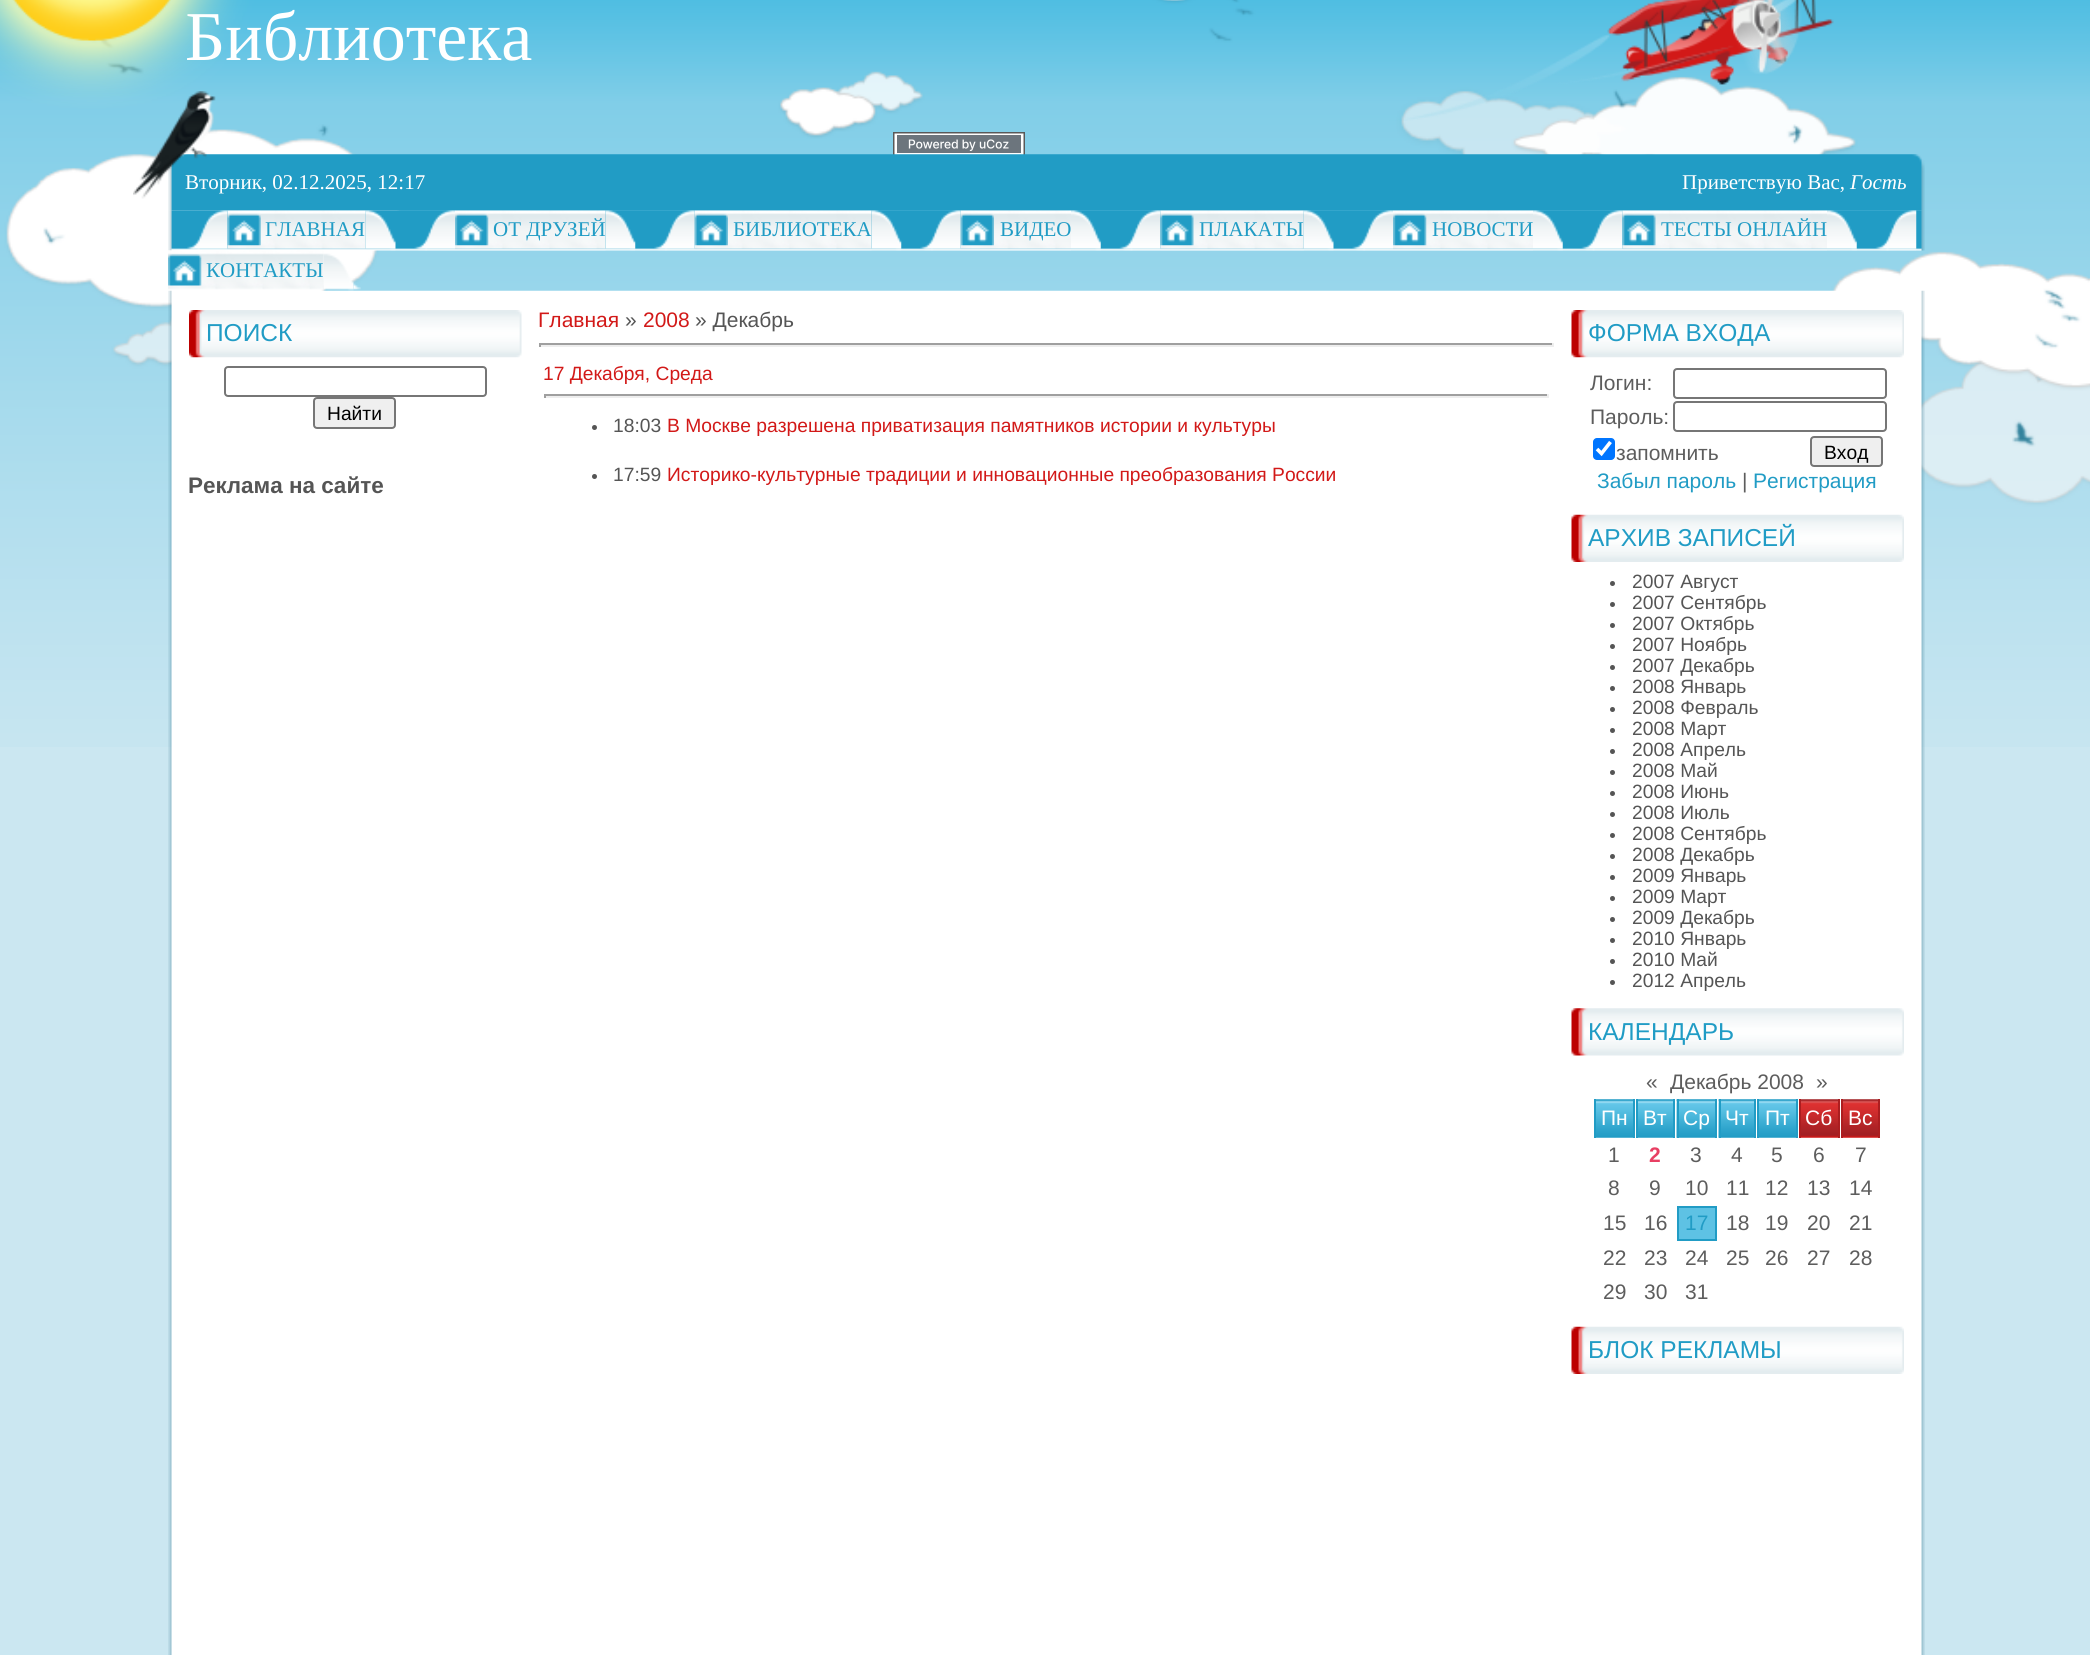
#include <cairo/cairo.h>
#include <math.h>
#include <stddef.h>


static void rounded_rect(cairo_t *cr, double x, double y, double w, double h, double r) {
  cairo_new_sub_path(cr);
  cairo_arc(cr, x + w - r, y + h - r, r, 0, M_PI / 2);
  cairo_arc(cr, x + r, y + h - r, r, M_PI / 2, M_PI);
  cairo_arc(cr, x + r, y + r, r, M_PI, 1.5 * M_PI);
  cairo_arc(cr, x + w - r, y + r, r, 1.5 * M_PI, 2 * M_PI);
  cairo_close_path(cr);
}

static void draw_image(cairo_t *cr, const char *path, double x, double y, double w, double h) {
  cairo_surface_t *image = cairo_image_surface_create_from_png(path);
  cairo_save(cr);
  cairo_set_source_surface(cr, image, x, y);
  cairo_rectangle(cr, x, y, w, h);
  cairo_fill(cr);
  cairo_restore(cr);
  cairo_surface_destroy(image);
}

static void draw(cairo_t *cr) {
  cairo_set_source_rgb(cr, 203 / 255.0, 231 / 255.0, 241 / 255.0);
  cairo_paint(cr);
  draw_image(cr, "images/1.png", 0, 0, 2090, 747);
  draw_image(cr, "images/2.png", 0, 0, 1834, 121);
  draw_image(cr, "images/5.png", 168, 210, 1757, 41);
  draw_image(cr, "images/6.png", 187, 210, 41, 40);
  draw_image(cr, "images/7.png", 227, 210, 139, 40);
  draw_image(cr, "images/8.png", 227, 213, 34, 33);
  draw_image(cr, "images/9.png", 365, 210, 31, 41);
  draw_image(cr, "images/10.png", 414, 210, 41, 41);
  draw_image(cr, "images/11.png", 455, 210, 151, 41);
  draw_image(cr, "images/12.png", 455, 213, 34, 33);
  draw_image(cr, "images/13.png", 605, 210, 31, 41);
  draw_image(cr, "images/14.png", 654, 210, 41, 41);
  draw_image(cr, "images/15.png", 694, 210, 178, 41);
  draw_image(cr, "images/16.png", 694, 213, 34, 33);
  draw_image(cr, "images/14.png", 920, 210, 41, 41);
  draw_image(cr, "images/18.png", 960, 210, 111, 41);
  draw_image(cr, "images/19.png", 960, 213, 34, 33);
  draw_image(cr, "images/20.png", 1071, 210, 30, 41);
  draw_image(cr, "images/21.png", 1119, 210, 42, 41);
  draw_image(cr, "images/22.png", 1160, 210, 144, 41);
  draw_image(cr, "images/23.png", 1160, 213, 34, 33);
  draw_image(cr, "images/10.png", 1352, 210, 41, 41);
  draw_image(cr, "images/25.png", 1393, 210, 140, 41);
  draw_image(cr, "images/26.png", 1393, 213, 34, 33);
  draw_image(cr, "images/27.png", 1533, 210, 30, 41);
  draw_image(cr, "images/28.png", 1581, 210, 42, 41);
  draw_image(cr, "images/29.png", 1622, 210, 205, 41);
  draw_image(cr, "images/30.png", 1622, 213, 34, 33);
  draw_image(cr, "images/20.png", 1827, 210, 30, 41);
  draw_image(cr, "images/28.png", 1875, 210, 42, 41);
  draw_image(cr, "images/31.png", 168, 250, 156, 40);
  draw_image(cr, "images/32.png", 168, 254, 34, 32);
  draw_image(cr, "images/35.png", 168, 290, 1757, 1365);
  draw_image(cr, "images/33.png", 324, 253, 30, 38);
  draw_image(cr, "images/34.png", 353, 283, 8, 7);
  draw_image(cr, "images/36.png", 189, 310, 333, 48);
  rounded_rect(cr, 225, 367, 261, 29, 3);
  cairo_set_source_rgb(cr, 118 / 255.0, 118 / 255.0, 118 / 255.0);
  cairo_stroke(cr);
  cairo_set_source_rgb(cr, 239 / 255.0, 239 / 255.0, 239 / 255.0);
  rounded_rect(cr, 314, 398, 81, 30, 3);
  cairo_fill_preserve(cr);
  cairo_set_source_rgb(cr, 118 / 255.0, 118 / 255.0, 118 / 255.0);
  cairo_stroke(cr);
  cairo_set_source_rgb(cr, 159 / 255.0, 159 / 255.0, 159 / 255.0);
  cairo_rectangle(cr, 539, 343, 1015, 2);
  cairo_fill(cr);
  cairo_set_source_rgb(cr, 238 / 255.0, 238 / 255.0, 238 / 255.0);
  cairo_rectangle(cr, 1552, 343, 2, 4);
  cairo_fill(cr);
  cairo_rectangle(cr, 539, 345, 1015, 2);
  cairo_fill(cr);
  cairo_set_source_rgb(cr, 159 / 255.0, 159 / 255.0, 159 / 255.0);
  cairo_rectangle(cr, 539, 343, 2, 4);
  cairo_fill(cr);
  cairo_rectangle(cr, 544, 394, 1005, 2);
  cairo_fill(cr);
  cairo_set_source_rgb(cr, 238 / 255.0, 238 / 255.0, 238 / 255.0);
  cairo_rectangle(cr, 1547, 394, 2, 4);
  cairo_fill(cr);
  cairo_rectangle(cr, 544, 396, 1005, 2);
  cairo_fill(cr);
  cairo_set_source_rgb(cr, 159 / 255.0, 159 / 255.0, 159 / 255.0);
  cairo_rectangle(cr, 544, 394, 2, 4);
  cairo_fill(cr);
  cairo_set_source_rgb(cr, 85 / 255.0, 85 / 255.0, 85 / 255.0);
  cairo_arc(cr, 594.5, 427.5, 2.5, 0, 2 * M_PI);
  cairo_fill(cr);
  cairo_arc(cr, 594.5, 476.5, 2.5, 0, 2 * M_PI);
  cairo_fill(cr);
  draw_image(cr, "images/37.png", 1571, 310, 333, 48);
  rounded_rect(cr, 1674, 369, 212, 29, 3);
  cairo_set_source_rgb(cr, 118 / 255.0, 118 / 255.0, 118 / 255.0);
  cairo_stroke(cr);
  rounded_rect(cr, 1674, 402, 212, 29, 3);
  cairo_stroke(cr);
  cairo_set_source_rgb(cr, 0, 117 / 255.0, 1);
  rounded_rect(cr, 1593, 438, 22, 22, 4);
  cairo_fill(cr);
  cairo_new_path(cr);
  cairo_move_to(cr, 1597, 449);
  cairo_line_to(cr, 1601.5, 453.5);
  cairo_line_to(cr, 1610.5, 442);
  cairo_set_source_rgb(cr, 1, 1, 1);
  cairo_set_line_width(cr, 3.6);
  cairo_stroke(cr);
  cairo_set_source_rgb(cr, 239 / 255.0, 239 / 255.0, 239 / 255.0);
  rounded_rect(cr, 1811, 437, 71, 29, 3);
  cairo_fill_preserve(cr);
  cairo_set_source_rgb(cr, 118 / 255.0, 118 / 255.0, 118 / 255.0);
  cairo_set_line_width(cr, 2);
  cairo_stroke(cr);
  draw_image(cr, "images/38.png", 1571, 514, 333, 48);
  cairo_set_source_rgb(cr, 85 / 255.0, 85 / 255.0, 85 / 255.0);
  cairo_arc(cr, 1612.5, 583.5, 2.5, 0, 2 * M_PI);
  cairo_fill(cr);
  cairo_arc(cr, 1612.5, 604.5, 2.5, 0, 2 * M_PI);
  cairo_fill(cr);
  cairo_arc(cr, 1612.5, 625.5, 2.5, 0, 2 * M_PI);
  cairo_fill(cr);
  cairo_arc(cr, 1612.5, 646.5, 2.5, 0, 2 * M_PI);
  cairo_fill(cr);
  cairo_arc(cr, 1612.5, 667.5, 2.5, 0, 2 * M_PI);
  cairo_fill(cr);
  cairo_arc(cr, 1612.5, 688.5, 2.5, 0, 2 * M_PI);
  cairo_fill(cr);
  cairo_arc(cr, 1612.5, 709.5, 2.5, 0, 2 * M_PI);
  cairo_fill(cr);
  cairo_arc(cr, 1612.5, 730.5, 2.5, 0, 2 * M_PI);
  cairo_fill(cr);
  cairo_arc(cr, 1612.5, 751.5, 2.5, 0, 2 * M_PI);
  cairo_fill(cr);
  cairo_arc(cr, 1612.5, 772.5, 2.5, 0, 2 * M_PI);
  cairo_fill(cr);
  cairo_arc(cr, 1612.5, 793.5, 2.5, 0, 2 * M_PI);
  cairo_fill(cr);
  cairo_arc(cr, 1612.5, 814.5, 2.5, 0, 2 * M_PI);
  cairo_fill(cr);
  cairo_arc(cr, 1612.5, 835.5, 2.5, 0, 2 * M_PI);
  cairo_fill(cr);
  cairo_arc(cr, 1612.5, 856.5, 2.5, 0, 2 * M_PI);
  cairo_fill(cr);
  cairo_arc(cr, 1612.5, 877.5, 2.5, 0, 2 * M_PI);
  cairo_fill(cr);
  cairo_arc(cr, 1612.5, 898.5, 2.5, 0, 2 * M_PI);
  cairo_fill(cr);
  cairo_arc(cr, 1612.5, 919.5, 2.5, 0, 2 * M_PI);
  cairo_fill(cr);
  cairo_arc(cr, 1612.5, 940.5, 2.5, 0, 2 * M_PI);
  cairo_fill(cr);
  cairo_arc(cr, 1612.5, 961.5, 2.5, 0, 2 * M_PI);
  cairo_fill(cr);
  cairo_arc(cr, 1612.5, 982.5, 2.5, 0, 2 * M_PI);
  cairo_fill(cr);
  draw_image(cr, "images/39.png", 1571, 1008, 333, 48);
  draw_image(cr, "images/40.png", 1596, 1099, 37, 39);
  cairo_set_source_rgb(cr, 33 / 255.0, 156 / 255.0, 197 / 255.0);
  cairo_rectangle(cr, 1633, 1099, 2, 39);
  cairo_fill(cr);
  cairo_rectangle(cr, 1594, 1099, 2, 39);
  cairo_fill(cr);
  draw_image(cr, "images/41.png", 1638, 1099, 35, 39);
  cairo_rectangle(cr, 1673, 1099, 2, 39);
  cairo_fill(cr);
  cairo_rectangle(cr, 1636, 1099, 2, 39);
  cairo_fill(cr);
  draw_image(cr, "images/42.png", 1676, 1099, 39, 39);
  cairo_rectangle(cr, 1715, 1099, 2, 39);
  cairo_fill(cr);
  cairo_rectangle(cr, 1677, 1099, 2, 39);
  cairo_fill(cr);
  draw_image(cr, "images/43.png", 1718, 1099, 36, 39);
  cairo_rectangle(cr, 1754, 1099, 2, 39);
  cairo_fill(cr);
  cairo_rectangle(cr, 1719, 1099, 2, 39);
  cairo_fill(cr);
  draw_image(cr, "images/40.png", 1759, 1099, 37, 39);
  cairo_rectangle(cr, 1796, 1099, 2, 39);
  cairo_fill(cr);
  cairo_rectangle(cr, 1757, 1099, 2, 39);
  cairo_fill(cr);
  draw_image(cr, "images/44.png", 1801, 1099, 37, 39);
  cairo_set_source_rgb(cr, 172 / 255.0, 30 / 255.0, 32 / 255.0);
  cairo_rectangle(cr, 1838, 1099, 2, 39);
  cairo_fill(cr);
  cairo_rectangle(cr, 1799, 1099, 2, 39);
  cairo_fill(cr);
  draw_image(cr, "images/45.png", 1843, 1099, 35, 39);
  cairo_rectangle(cr, 1878, 1099, 2, 39);
  cairo_fill(cr);
  cairo_rectangle(cr, 1841, 1099, 2, 39);
  cairo_fill(cr);
  cairo_set_source_rgb(cr, 94 / 255.0, 194 / 255.0, 228 / 255.0);
  cairo_rectangle(cr, 1678, 1207, 38, 33);
  cairo_fill_preserve(cr);
  cairo_set_source_rgb(cr, 33 / 255.0, 156 / 255.0, 197 / 255.0);
  cairo_stroke(cr);
  draw_image(cr, "images/38.png", 1571, 1326, 333, 48);
  draw_image(cr, "images/46.png", 893, 132, 132, 23);
  cairo_select_font_face(cr, "Liberation Serif", CAIRO_FONT_SLANT_NORMAL, CAIRO_FONT_WEIGHT_NORMAL);
  cairo_set_font_size(cr, 70);
  cairo_set_source_rgb(cr, 1, 1, 1);
  cairo_move_to(cr, 185, 60);
  cairo_show_text(cr, "Библиотека");
  cairo_set_font_size(cr, 21);
  cairo_set_source_rgb(cr, 33 / 255.0, 156 / 255.0, 197 / 255.0);
  cairo_move_to(cr, 265, 236);
  cairo_show_text(cr, "ГЛАВНАЯ");
  cairo_move_to(cr, 493, 236);
  cairo_show_text(cr, "ОТ ДРУЗЕЙ");
  cairo_move_to(cr, 733, 236);
  cairo_show_text(cr, "БИБЛИОТЕКА");
  draw_image(cr, "images/17.png", 871, 210, 31, 41);
  cairo_move_to(cr, 1000, 236);
  cairo_show_text(cr, "ВИДЕО");
  cairo_move_to(cr, 1199, 236);
  cairo_show_text(cr, "ПЛАКАТЫ");
  draw_image(cr, "images/24.png", 1303, 210, 31, 41);
  draw_image(cr, "images/3.png", 168, 154, 1757, 57);
  cairo_set_source_rgb(cr, 1, 1, 1);
  cairo_move_to(cr, 185, 189);
  cairo_show_text(cr, "Вторник, 02.12.2025, 12:17");
  draw_image(cr, "images/4.png", 133, 91, 83, 108);
  cairo_select_font_face(cr, "Liberation Serif", CAIRO_FONT_SLANT_ITALIC, CAIRO_FONT_WEIGHT_NORMAL);
  cairo_move_to(cr, 1850, 189);
  cairo_show_text(cr, "Гость");
  cairo_select_font_face(cr, "Liberation Serif", CAIRO_FONT_SLANT_NORMAL, CAIRO_FONT_WEIGHT_NORMAL);
  cairo_move_to(cr, 1682, 189);
  cairo_show_text(cr, "Приветствую Вас,");
  cairo_set_source_rgb(cr, 33 / 255.0, 156 / 255.0, 197 / 255.0);
  cairo_move_to(cr, 1432, 236);
  cairo_show_text(cr, "НОВОСТИ");
  cairo_move_to(cr, 1661, 236);
  cairo_show_text(cr, "ТЕСТЫ ОНЛАЙН");
  cairo_move_to(cr, 206, 277);
  cairo_show_text(cr, "КОНТАКТЫ");
  cairo_select_font_face(cr, "Liberation Sans", CAIRO_FONT_SLANT_NORMAL, CAIRO_FONT_WEIGHT_NORMAL);
  cairo_set_font_size(cr, 24.5);
  cairo_move_to(cr, 206, 341);
  cairo_show_text(cr, "ПОИСК");
  cairo_set_font_size(cr, 19.25);
  cairo_set_source_rgb(cr, 0, 0, 0);
  cairo_move_to(cr, 327, 420);
  cairo_show_text(cr, "Найти");
  cairo_select_font_face(cr, "Liberation Sans", CAIRO_FONT_SLANT_NORMAL, CAIRO_FONT_WEIGHT_BOLD);
  cairo_set_font_size(cr, 22.5);
  cairo_set_source_rgb(cr, 85 / 255.0, 85 / 255.0, 85 / 255.0);
  cairo_move_to(cr, 188, 493);
  cairo_show_text(cr, "Реклама на сайте");
  cairo_select_font_face(cr, "Liberation Sans", CAIRO_FONT_SLANT_NORMAL, CAIRO_FONT_WEIGHT_NORMAL);
  cairo_set_font_size(cr, 21);
  cairo_set_source_rgb(cr, 210 / 255.0, 25 / 255.0, 24 / 255.0);
  cairo_move_to(cr, 538, 327);
  cairo_show_text(cr, "Главная");
  cairo_set_source_rgb(cr, 85 / 255.0, 85 / 255.0, 85 / 255.0);
  cairo_move_to(cr, 625, 327);
  cairo_show_text(cr, "»");
  cairo_set_source_rgb(cr, 210 / 255.0, 25 / 255.0, 24 / 255.0);
  cairo_move_to(cr, 643, 327);
  cairo_show_text(cr, "2008");
  cairo_set_source_rgb(cr, 85 / 255.0, 85 / 255.0, 85 / 255.0);
  cairo_move_to(cr, 695, 327);
  cairo_show_text(cr, "» Декабрь");
  cairo_set_font_size(cr, 19.25);
  cairo_set_source_rgb(cr, 210 / 255.0, 25 / 255.0, 24 / 255.0);
  cairo_move_to(cr, 543, 380);
  cairo_show_text(cr, "17 Декабря, Среда");
  cairo_set_source_rgb(cr, 85 / 255.0, 85 / 255.0, 85 / 255.0);
  cairo_move_to(cr, 613, 432);
  cairo_show_text(cr, "18:03");
  cairo_set_source_rgb(cr, 210 / 255.0, 25 / 255.0, 24 / 255.0);
  cairo_move_to(cr, 667, 432);
  cairo_show_text(cr, "В Москве разрешена приватизация памятников истории и культуры");
  cairo_set_source_rgb(cr, 85 / 255.0, 85 / 255.0, 85 / 255.0);
  cairo_move_to(cr, 613, 481);
  cairo_show_text(cr, "17:59");
  cairo_set_source_rgb(cr, 210 / 255.0, 25 / 255.0, 24 / 255.0);
  cairo_move_to(cr, 667, 481);
  cairo_show_text(cr, "Историко-культурные традиции и инновационные преобразования России");
  cairo_set_font_size(cr, 24.5);
  cairo_set_source_rgb(cr, 33 / 255.0, 156 / 255.0, 197 / 255.0);
  cairo_move_to(cr, 1588, 341);
  cairo_show_text(cr, "ФОРМА ВХОДА");
  cairo_set_font_size(cr, 21);
  cairo_set_source_rgb(cr, 93 / 255.0, 93 / 255.0, 93 / 255.0);
  cairo_move_to(cr, 1590, 390);
  cairo_show_text(cr, "Логин:");
  cairo_move_to(cr, 1590, 424);
  cairo_show_text(cr, "Пароль:");
  cairo_move_to(cr, 1616, 460);
  cairo_show_text(cr, "запомнить");
  cairo_set_font_size(cr, 19.25);
  cairo_set_source_rgb(cr, 0, 0, 0);
  cairo_move_to(cr, 1824, 459);
  cairo_show_text(cr, "Вход");
  cairo_set_font_size(cr, 21);
  cairo_set_source_rgb(cr, 33 / 255.0, 156 / 255.0, 197 / 255.0);
  cairo_move_to(cr, 1597, 488);
  cairo_show_text(cr, "Забыл пароль");
  cairo_set_source_rgb(cr, 93 / 255.0, 93 / 255.0, 93 / 255.0);
  cairo_move_to(cr, 1742, 488);
  cairo_show_text(cr, "|");
  cairo_set_source_rgb(cr, 33 / 255.0, 156 / 255.0, 197 / 255.0);
  cairo_move_to(cr, 1753, 488);
  cairo_show_text(cr, "Регистрация");
  cairo_set_font_size(cr, 24.5);
  cairo_move_to(cr, 1588, 546);
  cairo_show_text(cr, "АРХИВ ЗАПИСЕЙ");
  cairo_set_font_size(cr, 19.25);
  cairo_set_source_rgb(cr, 85 / 255.0, 85 / 255.0, 85 / 255.0);
  cairo_move_to(cr, 1632, 588);
  cairo_show_text(cr, "2007 Август");
  cairo_move_to(cr, 1632, 609);
  cairo_show_text(cr, "2007 Сентябрь");
  cairo_move_to(cr, 1632, 630);
  cairo_show_text(cr, "2007 Октябрь");
  cairo_move_to(cr, 1632, 651);
  cairo_show_text(cr, "2007 Ноябрь");
  cairo_move_to(cr, 1632, 672);
  cairo_show_text(cr, "2007 Декабрь");
  cairo_move_to(cr, 1632, 693);
  cairo_show_text(cr, "2008 Январь");
  cairo_move_to(cr, 1632, 714);
  cairo_show_text(cr, "2008 Февраль");
  cairo_move_to(cr, 1632, 735);
  cairo_show_text(cr, "2008 Март");
  cairo_move_to(cr, 1632, 756);
  cairo_show_text(cr, "2008 Апрель");
  cairo_move_to(cr, 1632, 777);
  cairo_show_text(cr, "2008 Май");
  cairo_move_to(cr, 1632, 798);
  cairo_show_text(cr, "2008 Июнь");
  cairo_move_to(cr, 1632, 819);
  cairo_show_text(cr, "2008 Июль");
  cairo_move_to(cr, 1632, 840);
  cairo_show_text(cr, "2008 Сентябрь");
  cairo_move_to(cr, 1632, 861);
  cairo_show_text(cr, "2008 Декабрь");
  cairo_move_to(cr, 1632, 882);
  cairo_show_text(cr, "2009 Январь");
  cairo_move_to(cr, 1632, 903);
  cairo_show_text(cr, "2009 Март");
  cairo_move_to(cr, 1632, 924);
  cairo_show_text(cr, "2009 Декабрь");
  cairo_move_to(cr, 1632, 945);
  cairo_show_text(cr, "2010 Январь");
  cairo_move_to(cr, 1632, 966);
  cairo_show_text(cr, "2010 Май");
  cairo_move_to(cr, 1632, 987);
  cairo_show_text(cr, "2012 Апрель");
  cairo_set_font_size(cr, 24.5);
  cairo_set_source_rgb(cr, 33 / 255.0, 156 / 255.0, 197 / 255.0);
  cairo_move_to(cr, 1588, 1040);
  cairo_show_text(cr, "КАЛЕНДАРЬ");
  cairo_set_font_size(cr, 21);
  cairo_set_source_rgb(cr, 93 / 255.0, 93 / 255.0, 93 / 255.0);
  cairo_move_to(cr, 1646, 1089);
  cairo_show_text(cr, "«");
  cairo_move_to(cr, 1670, 1089);
  cairo_show_text(cr, "Декабрь 2008");
  cairo_move_to(cr, 1816, 1089);
  cairo_show_text(cr, "»");
  cairo_set_source_rgb(cr, 1, 1, 1);
  cairo_move_to(cr, 1601, 1125);
  cairo_show_text(cr, "Пн");
  cairo_move_to(cr, 1643, 1125);
  cairo_show_text(cr, "Вт");
  cairo_move_to(cr, 1683, 1125);
  cairo_show_text(cr, "Ср");
  cairo_move_to(cr, 1725, 1125);
  cairo_show_text(cr, "Чт");
  cairo_move_to(cr, 1765, 1125);
  cairo_show_text(cr, "Пт");
  cairo_move_to(cr, 1805, 1125);
  cairo_show_text(cr, "Сб");
  cairo_move_to(cr, 1848, 1125);
  cairo_show_text(cr, "Вс");
  cairo_set_source_rgb(cr, 93 / 255.0, 93 / 255.0, 93 / 255.0);
  cairo_move_to(cr, 1608, 1162);
  cairo_show_text(cr, "1");
  cairo_select_font_face(cr, "Liberation Sans", CAIRO_FONT_SLANT_NORMAL, CAIRO_FONT_WEIGHT_BOLD);
  cairo_set_source_rgb(cr, 232 / 255.0, 63 / 255.0, 99 / 255.0);
  cairo_move_to(cr, 1649, 1162);
  cairo_show_text(cr, "2");
  cairo_select_font_face(cr, "Liberation Sans", CAIRO_FONT_SLANT_NORMAL, CAIRO_FONT_WEIGHT_NORMAL);
  cairo_set_source_rgb(cr, 93 / 255.0, 93 / 255.0, 93 / 255.0);
  cairo_move_to(cr, 1690, 1162);
  cairo_show_text(cr, "3");
  cairo_move_to(cr, 1731, 1162);
  cairo_show_text(cr, "4");
  cairo_move_to(cr, 1771, 1162);
  cairo_show_text(cr, "5");
  cairo_move_to(cr, 1813, 1162);
  cairo_show_text(cr, "6");
  cairo_move_to(cr, 1855, 1162);
  cairo_show_text(cr, "7");
  cairo_move_to(cr, 1608, 1195);
  cairo_show_text(cr, "8");
  cairo_move_to(cr, 1649, 1195);
  cairo_show_text(cr, "9");
  cairo_move_to(cr, 1685, 1195);
  cairo_show_text(cr, "10");
  cairo_move_to(cr, 1726, 1195);
  cairo_show_text(cr, "11");
  cairo_move_to(cr, 1765, 1195);
  cairo_show_text(cr, "12");
  cairo_move_to(cr, 1807, 1195);
  cairo_show_text(cr, "13");
  cairo_move_to(cr, 1849, 1195);
  cairo_show_text(cr, "14");
  cairo_move_to(cr, 1603, 1230);
  cairo_show_text(cr, "15");
  cairo_move_to(cr, 1644, 1230);
  cairo_show_text(cr, "16");
  cairo_set_source_rgb(cr, 33 / 255.0, 156 / 255.0, 197 / 255.0);
  cairo_move_to(cr, 1685, 1230);
  cairo_show_text(cr, "17");
  cairo_set_source_rgb(cr, 93 / 255.0, 93 / 255.0, 93 / 255.0);
  cairo_move_to(cr, 1726, 1230);
  cairo_show_text(cr, "18");
  cairo_move_to(cr, 1765, 1230);
  cairo_show_text(cr, "19");
  cairo_move_to(cr, 1807, 1230);
  cairo_show_text(cr, "20");
  cairo_move_to(cr, 1849, 1230);
  cairo_show_text(cr, "21");
  cairo_move_to(cr, 1603, 1265);
  cairo_show_text(cr, "22");
  cairo_move_to(cr, 1644, 1265);
  cairo_show_text(cr, "23");
  cairo_move_to(cr, 1685, 1265);
  cairo_show_text(cr, "24");
  cairo_move_to(cr, 1726, 1265);
  cairo_show_text(cr, "25");
  cairo_move_to(cr, 1765, 1265);
  cairo_show_text(cr, "26");
  cairo_move_to(cr, 1807, 1265);
  cairo_show_text(cr, "27");
  cairo_move_to(cr, 1849, 1265);
  cairo_show_text(cr, "28");
  cairo_move_to(cr, 1603, 1299);
  cairo_show_text(cr, "29");
  cairo_move_to(cr, 1644, 1299);
  cairo_show_text(cr, "30");
  cairo_move_to(cr, 1685, 1299);
  cairo_show_text(cr, "31");
  cairo_set_font_size(cr, 24.5);
  cairo_set_source_rgb(cr, 33 / 255.0, 156 / 255.0, 197 / 255.0);
  cairo_move_to(cr, 1588, 1358);
  cairo_show_text(cr, "БЛОК РЕКЛАМЫ");
}

int main(void) {
  cairo_surface_t *surface = cairo_image_surface_create(CAIRO_FORMAT_RGB24, 2090, 1655);
  cairo_t *cr = cairo_create(surface);
  cairo_font_options_t *options = cairo_font_options_create();
  cairo_font_options_set_hint_metrics(options, CAIRO_HINT_METRICS_OFF);
  cairo_font_options_set_hint_style(options, CAIRO_HINT_STYLE_NONE);
  cairo_set_font_options(cr, options);
  cairo_set_miter_limit(cr, 4);
  draw(cr);
  cairo_surface_write_to_png(surface, "out.png");
  cairo_font_options_destroy(options);
  cairo_destroy(cr);
  cairo_surface_destroy(surface);
  return 0;
}
